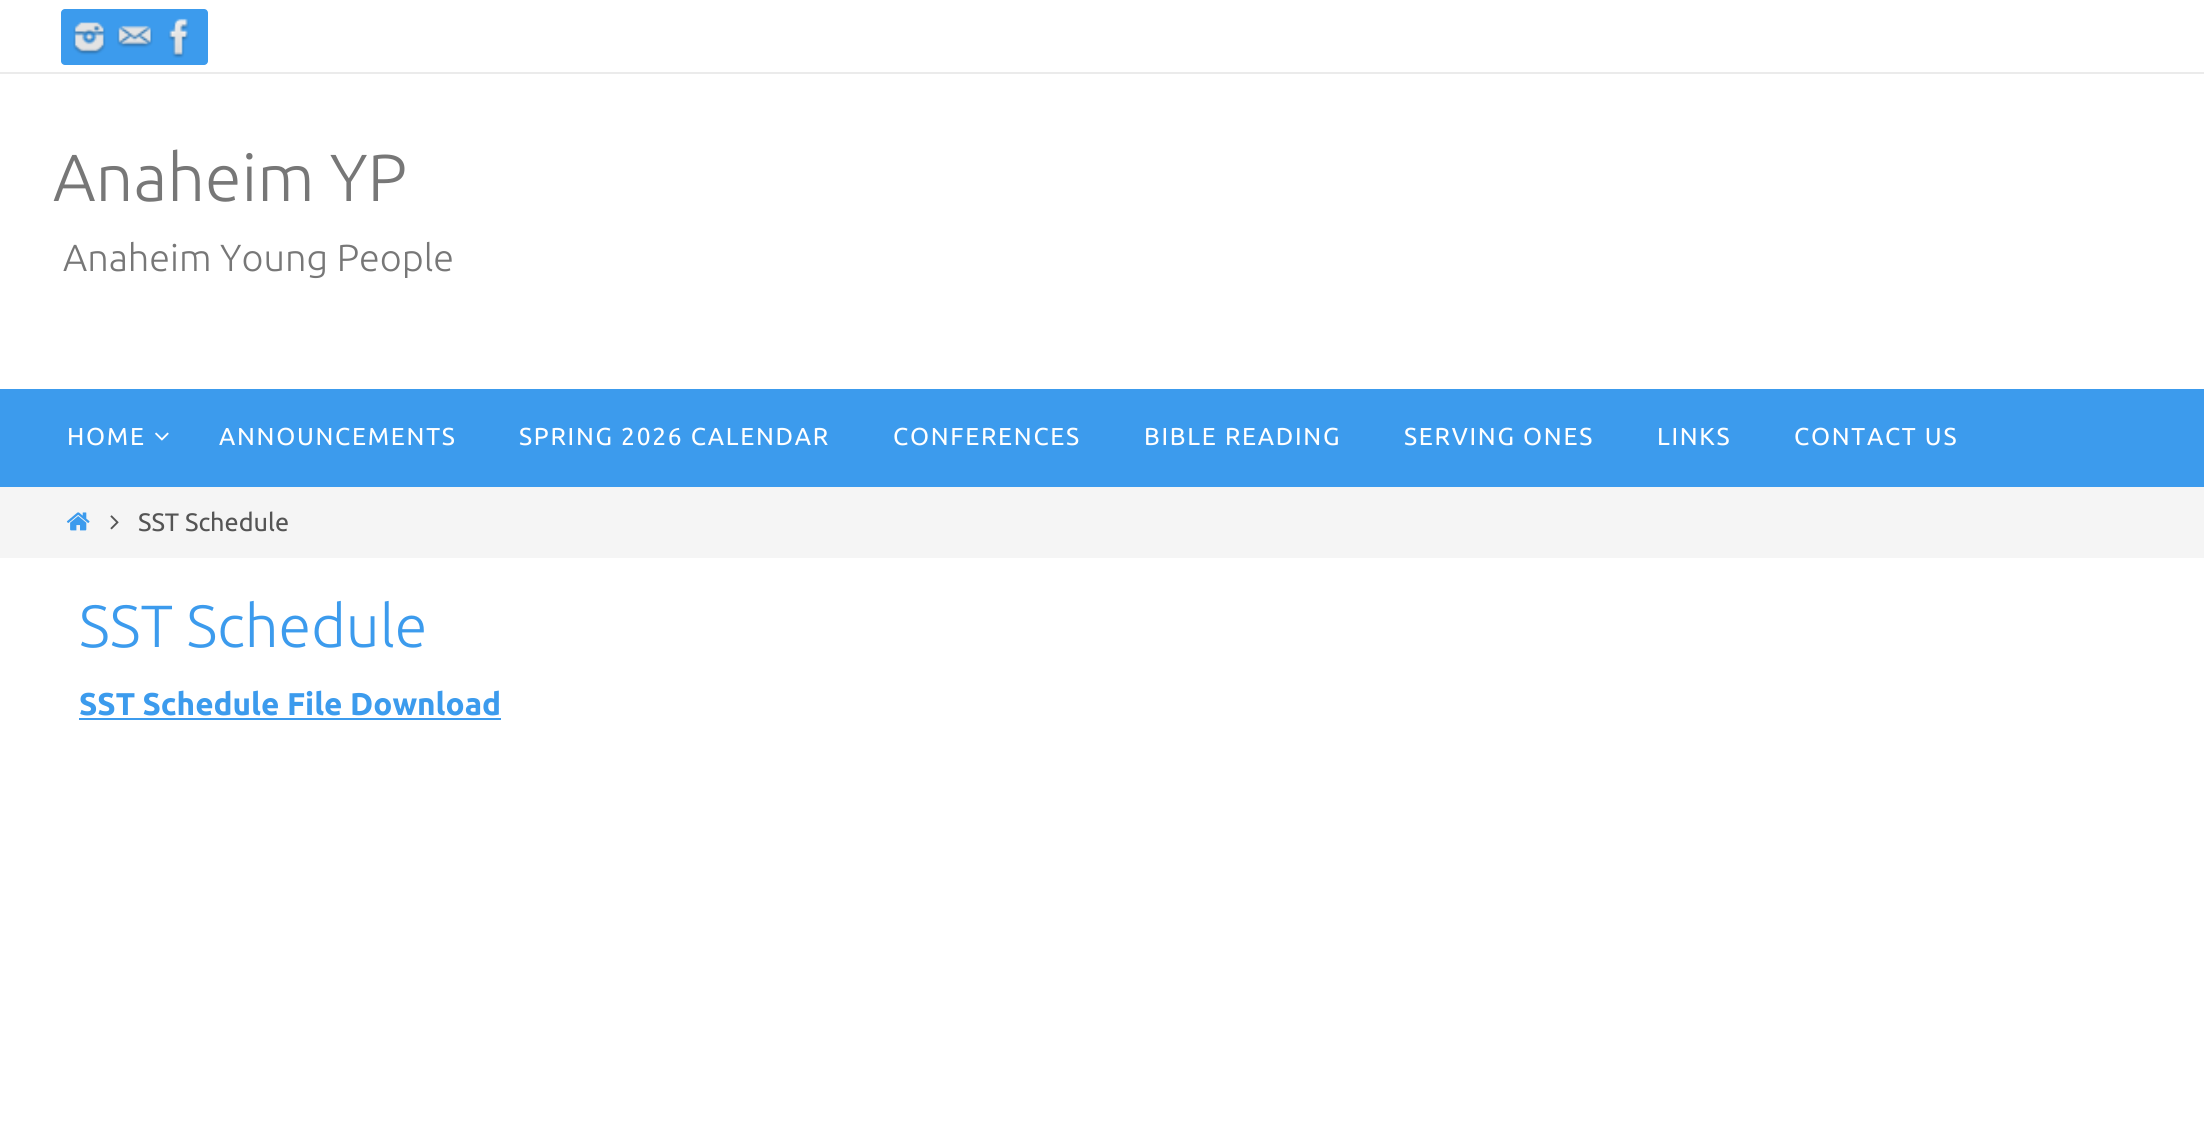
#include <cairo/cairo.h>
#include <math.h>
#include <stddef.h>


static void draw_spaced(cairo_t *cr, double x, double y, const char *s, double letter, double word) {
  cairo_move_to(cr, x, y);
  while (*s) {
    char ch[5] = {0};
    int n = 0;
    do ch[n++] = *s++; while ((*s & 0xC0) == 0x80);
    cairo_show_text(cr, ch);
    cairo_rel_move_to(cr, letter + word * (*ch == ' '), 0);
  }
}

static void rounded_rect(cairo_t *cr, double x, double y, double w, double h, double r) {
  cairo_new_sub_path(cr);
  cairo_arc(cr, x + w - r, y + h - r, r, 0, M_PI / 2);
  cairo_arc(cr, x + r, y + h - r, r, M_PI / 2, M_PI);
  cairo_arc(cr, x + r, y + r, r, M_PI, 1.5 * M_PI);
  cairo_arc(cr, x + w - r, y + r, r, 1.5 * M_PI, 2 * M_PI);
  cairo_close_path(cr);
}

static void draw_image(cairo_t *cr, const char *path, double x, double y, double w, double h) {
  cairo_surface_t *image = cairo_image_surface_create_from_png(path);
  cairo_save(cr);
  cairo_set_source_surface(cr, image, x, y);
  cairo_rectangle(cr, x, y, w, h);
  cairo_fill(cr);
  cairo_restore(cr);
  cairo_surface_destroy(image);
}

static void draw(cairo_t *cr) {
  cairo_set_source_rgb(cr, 1, 1, 1);
  cairo_paint(cr);
  cairo_set_source_rgb(cr, 235 / 255.0, 235 / 255.0, 235 / 255.0);
  cairo_rectangle(cr, 0, 72, 2204, 2);
  cairo_fill(cr);
  cairo_set_source_rgb(cr, 60 / 255.0, 155 / 255.0, 237 / 255.0);
  rounded_rect(cr, 61, 9, 56, 56, 4);
  cairo_fill(cr);
  draw_image(cr, "images/1.png", 73, 22, 33, 33);
  rounded_rect(cr, 107, 9, 56, 56, 4);
  cairo_fill(cr);
  rounded_rect(cr, 152, 9, 56, 56, 4);
  cairo_fill(cr);
  draw_image(cr, "images/2.png", 117, 25, 36, 23);
  draw_image(cr, "images/3.png", 168, 18, 21, 40);
  cairo_rectangle(cr, 0, 389, 2204, 98);
  cairo_fill(cr);
  draw_image(cr, "images/4.png", 155, 432, 14, 9);
  cairo_set_source_rgb(cr, 245 / 255.0, 245 / 255.0, 245 / 255.0);
  cairo_rectangle(cr, 0, 487, 2204, 71);
  cairo_fill(cr);
  draw_image(cr, "images/5.png", 66, 512, 24, 19);
  draw_image(cr, "images/6.png", 110, 515, 9, 15);
  cairo_set_source_rgb(cr, 60 / 255.0, 155 / 255.0, 237 / 255.0);
  cairo_rectangle(cr, 79, 718, 422, 2);
  cairo_fill(cr);
  cairo_select_font_face(cr, "Ubuntu Light", CAIRO_FONT_SLANT_NORMAL, CAIRO_FONT_WEIGHT_NORMAL);
  cairo_set_font_size(cr, 66.5);
  cairo_set_source_rgb(cr, 119 / 255.0, 119 / 255.0, 119 / 255.0);
  cairo_move_to(cr, 53, 201);
  cairo_show_text(cr, "Anaheim YP");
  cairo_set_font_size(cr, 37.75);
  cairo_move_to(cr, 63, 271);
  cairo_show_text(cr, "Anaheim Young People");
  cairo_select_font_face(cr, "Ubuntu", CAIRO_FONT_SLANT_NORMAL, CAIRO_FONT_WEIGHT_NORMAL);
  cairo_set_font_size(cr, 24.5);
  cairo_set_source_rgb(cr, 1, 1, 1);
  draw_spaced(cr, 67, 445, "HOME", 1.75, 0);
  draw_spaced(cr, 219, 445, "ANNOUNCEMENTS", 1.75, 0);
  draw_spaced(cr, 519, 445, "SPRING 2026 CALENDAR", 1.75, 0);
  draw_spaced(cr, 893, 445, "CONFERENCES", 1.75, 0);
  draw_spaced(cr, 1144, 445, "BIBLE READING", 1.75, 0);
  draw_spaced(cr, 1404, 445, "SERVING ONES", 1.75, 0);
  draw_spaced(cr, 1657, 445, "LINKS", 1.75, 0);
  draw_spaced(cr, 1794, 445, "CONTACT US", 1.75, 0);
  cairo_set_font_size(cr, 25.25);
  cairo_set_source_rgb(cr, 85 / 255.0, 85 / 255.0, 85 / 255.0);
  cairo_move_to(cr, 138, 531);
  cairo_show_text(cr, "SST Schedule");
  cairo_select_font_face(cr, "Ubuntu Light", CAIRO_FONT_SLANT_NORMAL, CAIRO_FONT_WEIGHT_NORMAL);
  cairo_set_font_size(cr, 59.5);
  cairo_set_source_rgb(cr, 60 / 255.0, 155 / 255.0, 237 / 255.0);
  cairo_move_to(cr, 79, 647);
  cairo_show_text(cr, "SST Schedule");
  cairo_select_font_face(cr, "Ubuntu", CAIRO_FONT_SLANT_NORMAL, CAIRO_FONT_WEIGHT_BOLD);
  cairo_set_font_size(cr, 31.5);
  cairo_move_to(cr, 79, 715);
  cairo_show_text(cr, "SST Schedule File Download");
}

int main(void) {
  cairo_surface_t *surface = cairo_image_surface_create(CAIRO_FORMAT_RGB24, 2204, 1135);
  cairo_t *cr = cairo_create(surface);
  cairo_font_options_t *options = cairo_font_options_create();
  cairo_font_options_set_hint_metrics(options, CAIRO_HINT_METRICS_OFF);
  cairo_font_options_set_hint_style(options, CAIRO_HINT_STYLE_NONE);
  cairo_set_font_options(cr, options);
  cairo_set_miter_limit(cr, 4);
  draw(cr);
  cairo_surface_write_to_png(surface, "out.png");
  cairo_font_options_destroy(options);
  cairo_destroy(cr);
  cairo_surface_destroy(surface);
  return 0;
}
